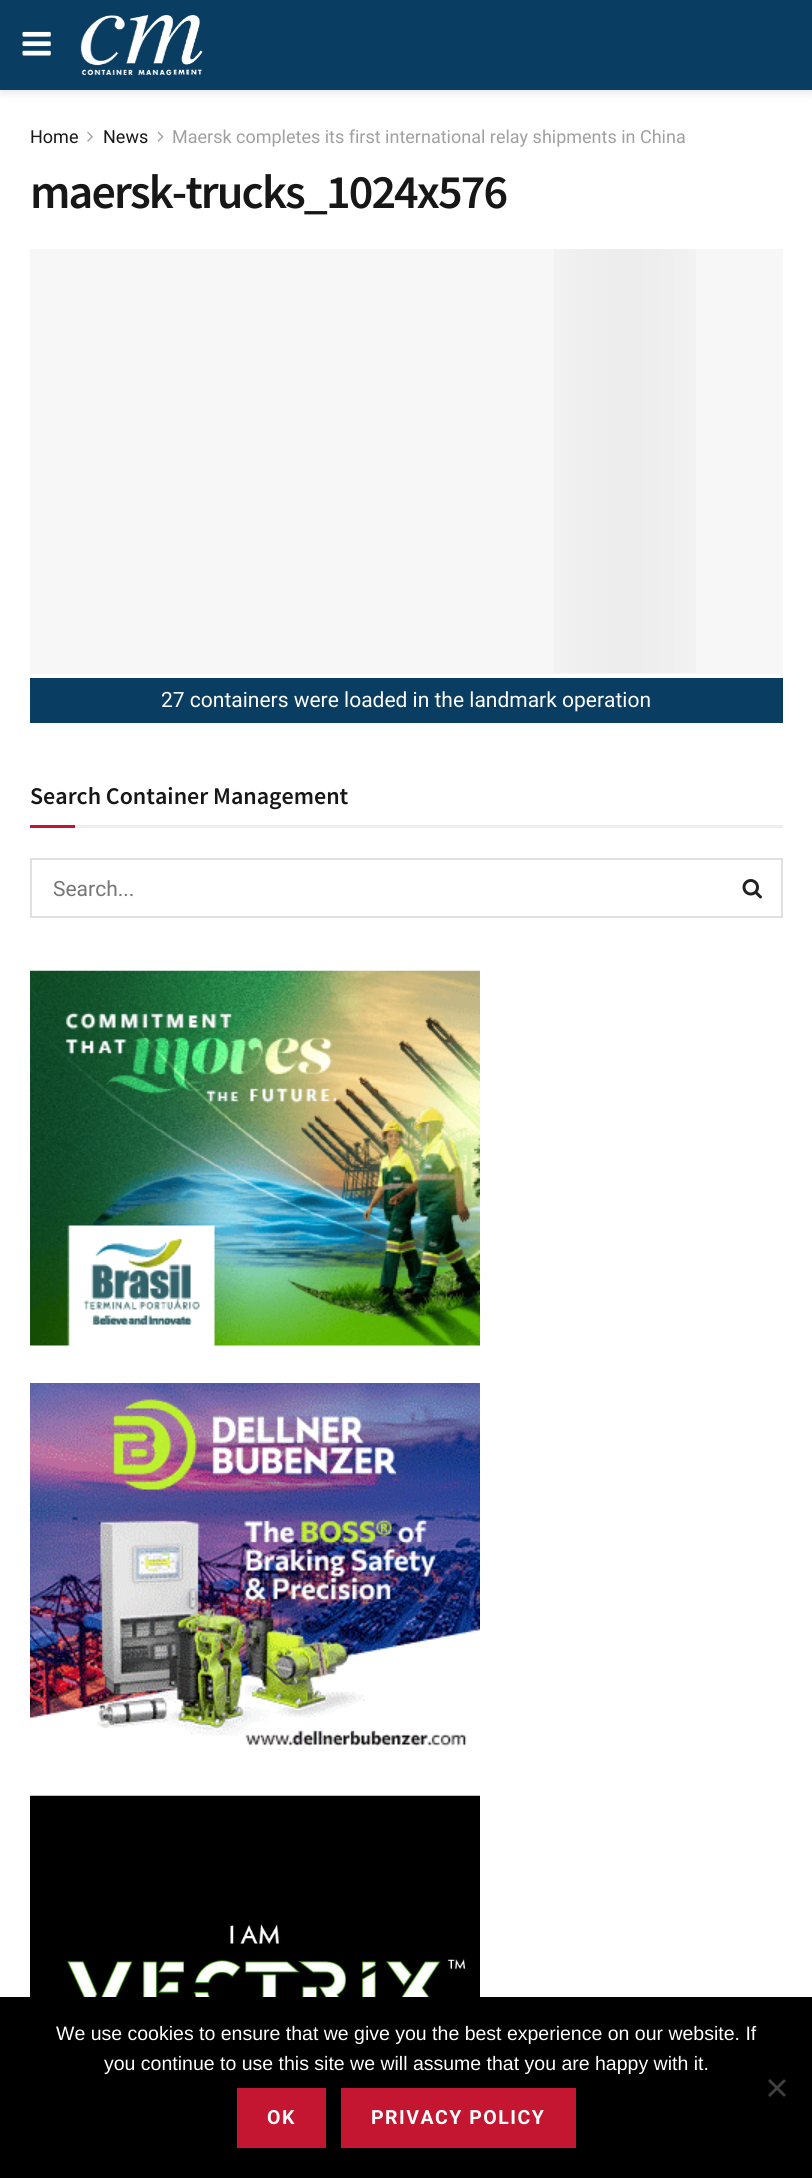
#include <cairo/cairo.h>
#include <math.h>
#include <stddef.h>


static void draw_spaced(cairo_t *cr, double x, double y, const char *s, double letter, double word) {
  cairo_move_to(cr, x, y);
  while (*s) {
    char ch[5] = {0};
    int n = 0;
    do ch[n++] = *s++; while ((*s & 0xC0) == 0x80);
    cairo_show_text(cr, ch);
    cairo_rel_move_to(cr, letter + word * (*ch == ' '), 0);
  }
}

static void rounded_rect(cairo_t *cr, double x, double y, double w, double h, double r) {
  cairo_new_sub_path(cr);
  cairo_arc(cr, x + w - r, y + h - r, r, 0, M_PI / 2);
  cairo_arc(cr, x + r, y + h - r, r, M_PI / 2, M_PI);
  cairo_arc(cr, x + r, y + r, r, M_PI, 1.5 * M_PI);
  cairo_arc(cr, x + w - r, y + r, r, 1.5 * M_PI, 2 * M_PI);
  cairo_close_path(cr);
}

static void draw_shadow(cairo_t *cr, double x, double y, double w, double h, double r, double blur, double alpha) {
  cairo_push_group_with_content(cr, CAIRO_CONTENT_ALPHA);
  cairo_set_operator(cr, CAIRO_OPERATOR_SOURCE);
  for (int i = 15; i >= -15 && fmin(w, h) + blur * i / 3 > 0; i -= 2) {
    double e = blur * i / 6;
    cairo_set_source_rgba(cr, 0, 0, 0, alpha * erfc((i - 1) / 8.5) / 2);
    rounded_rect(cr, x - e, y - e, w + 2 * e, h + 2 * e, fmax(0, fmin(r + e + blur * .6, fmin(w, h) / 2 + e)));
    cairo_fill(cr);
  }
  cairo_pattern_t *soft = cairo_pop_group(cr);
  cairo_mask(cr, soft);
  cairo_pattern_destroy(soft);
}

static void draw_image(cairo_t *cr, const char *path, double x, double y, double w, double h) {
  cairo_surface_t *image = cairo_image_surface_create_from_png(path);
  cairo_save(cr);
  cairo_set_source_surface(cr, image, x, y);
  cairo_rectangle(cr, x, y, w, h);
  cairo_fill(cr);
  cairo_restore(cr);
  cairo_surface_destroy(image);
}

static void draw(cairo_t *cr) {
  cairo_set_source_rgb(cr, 1, 1, 1);
  cairo_paint(cr);
  cairo_set_source_rgb(cr, 0, 0, 0);
  draw_shadow(cr, 0, 3, 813, 90, 0, 4.5, 0.1);
  cairo_set_source_rgb(cr, 10 / 255.0, 61 / 255.0, 98 / 255.0);
  cairo_rectangle(cr, 0, 0, 812, 90);
  cairo_fill(cr);
  draw_image(cr, "images/1.png", 22, 31, 29, 25);
  draw_image(cr, "images/2.png", 80, 15, 123, 60);
  draw_image(cr, "images/3.png", 87, 131, 6, 11);
  draw_image(cr, "images/4.png", 157, 131, 7, 11);
  cairo_set_source_rgb(cr, 247 / 255.0, 247 / 255.0, 247 / 255.0);
  cairo_rectangle(cr, 30, 249, 753, 425);
  cairo_fill(cr);
  draw_image(cr, "images/5.png", 554, 249, 142, 424);
  cairo_set_source_rgb(cr, 10 / 255.0, 61 / 255.0, 98 / 255.0);
  cairo_rectangle(cr, 30, 678, 753, 45);
  cairo_fill(cr);
  cairo_set_source_rgb(cr, 238 / 255.0, 238 / 255.0, 238 / 255.0);
  cairo_rectangle(cr, 75, 825, 708, 3);
  cairo_fill(cr);
  cairo_set_source_rgb(cr, 196 / 255.0, 22 / 255.0, 48 / 255.0);
  cairo_rectangle(cr, 30, 825, 45, 3);
  cairo_fill(cr);
  cairo_rectangle(cr, 31, 859, 751, 58);
  cairo_set_source_rgb(cr, 224 / 255.0, 224 / 255.0, 224 / 255.0);
  cairo_stroke(cr);
  draw_image(cr, "images/6.png", 742, 879, 20, 20);
  draw_image(cr, "images/7.png", 30, 970, 450, 376);
  draw_image(cr, "images/8.png", 30, 1383, 450, 364);
  draw_image(cr, "images/9.png", 30, 1795, 450, 202);
  cairo_set_source_rgb(cr, 0, 0, 0);
  cairo_rectangle(cr, 0, 1997, 812, 181);
  cairo_fill(cr);
  cairo_set_source_rgb(cr, 64 / 255.0, 64 / 255.0, 64 / 255.0);
  cairo_new_path(cr);
  cairo_move_to(cr, 784, 2079);
  cairo_line_to(cr, 786, 2081);
  cairo_line_to(cr, 770, 2097);
  cairo_line_to(cr, 768, 2095);
  cairo_close_path(cr);
  cairo_fill(cr);
  cairo_new_path(cr);
  cairo_move_to(cr, 768, 2081);
  cairo_line_to(cr, 770, 2079);
  cairo_line_to(cr, 786, 2095);
  cairo_line_to(cr, 784, 2097);
  cairo_close_path(cr);
  cairo_fill(cr);
  cairo_set_source_rgb(cr, 196 / 255.0, 22 / 255.0, 48 / 255.0);
  cairo_rectangle(cr, 237, 2088, 89, 60);
  cairo_fill(cr);
  cairo_rectangle(cr, 341, 2088, 235, 60);
  cairo_fill(cr);
  cairo_select_font_face(cr, "Roboto", CAIRO_FONT_SLANT_NORMAL, CAIRO_FONT_WEIGHT_NORMAL);
  cairo_set_font_size(cr, 18);
  cairo_set_source_rgb(cr, 23 / 255.0, 23 / 255.0, 23 / 255.0);
  cairo_move_to(cr, 30, 143);
  cairo_show_text(cr, "Home");
  cairo_move_to(cr, 103, 143);
  cairo_show_text(cr, "News");
  cairo_set_source_rgb(cr, 160 / 255.0, 160 / 255.0, 160 / 255.0);
  cairo_move_to(cr, 172, 143);
  cairo_show_text(cr, "Maersk completes its first international relay shipments in China");
  cairo_select_font_face(cr, "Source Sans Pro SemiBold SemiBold", CAIRO_FONT_SLANT_NORMAL, CAIRO_FONT_WEIGHT_NORMAL);
  cairo_set_font_size(cr, 48);
  cairo_set_source_rgb(cr, 23 / 255.0, 23 / 255.0, 23 / 255.0);
  draw_spaced(cr, 30, 208, "maersk-trucks_1024x576", -1.9, 0);
  cairo_select_font_face(cr, "Roboto", CAIRO_FONT_SLANT_NORMAL, CAIRO_FONT_WEIGHT_NORMAL);
  cairo_set_font_size(cr, 21);
  cairo_set_source_rgb(cr, 1, 1, 1);
  cairo_move_to(cr, 161, 707);
  cairo_show_text(cr, "27 containers were loaded in the landmark operation");
  cairo_select_font_face(cr, "Source Sans Pro SemiBold SemiBold", CAIRO_FONT_SLANT_NORMAL, CAIRO_FONT_WEIGHT_NORMAL);
  cairo_set_font_size(cr, 24);
  cairo_set_source_rgb(cr, 23 / 255.0, 23 / 255.0, 23 / 255.0);
  cairo_move_to(cr, 30, 804);
  cairo_show_text(cr, "Search Container Management");
  cairo_select_font_face(cr, "Roboto", CAIRO_FONT_SLANT_NORMAL, CAIRO_FONT_WEIGHT_NORMAL);
  cairo_set_font_size(cr, 21);
  cairo_set_source_rgb(cr, 117 / 255.0, 117 / 255.0, 117 / 255.0);
  cairo_move_to(cr, 53, 896);
  cairo_show_text(cr, "Search...");
  cairo_select_font_face(cr, "Liberation Sans", CAIRO_FONT_SLANT_NORMAL, CAIRO_FONT_WEIGHT_NORMAL);
  cairo_set_font_size(cr, 19.5);
  cairo_set_source_rgb(cr, 1, 1, 1);
  cairo_move_to(cr, 56, 2040);
  cairo_show_text(cr, "We use cookies to ensure that we give you the best experience on our website. If");
  cairo_move_to(cr, 104, 2070);
  cairo_show_text(cr, "you continue to use this site we will assume that you are happy with it.");
  cairo_select_font_face(cr, "Roboto", CAIRO_FONT_SLANT_NORMAL, CAIRO_FONT_WEIGHT_BOLD);
  draw_spaced(cr, 267, 2124, "OK", 1.5, 0);
  draw_spaced(cr, 371, 2124, "PRIVACY POLICY", 1.5, 0);
}

int main(void) {
  cairo_surface_t *surface = cairo_image_surface_create(CAIRO_FORMAT_RGB24, 812, 2178);
  cairo_t *cr = cairo_create(surface);
  cairo_font_options_t *options = cairo_font_options_create();
  cairo_font_options_set_hint_metrics(options, CAIRO_HINT_METRICS_OFF);
  cairo_font_options_set_hint_style(options, CAIRO_HINT_STYLE_NONE);
  cairo_set_font_options(cr, options);
  cairo_set_miter_limit(cr, 4);
  draw(cr);
  cairo_surface_write_to_png(surface, "out.png");
  cairo_font_options_destroy(options);
  cairo_destroy(cr);
  cairo_surface_destroy(surface);
  return 0;
}
